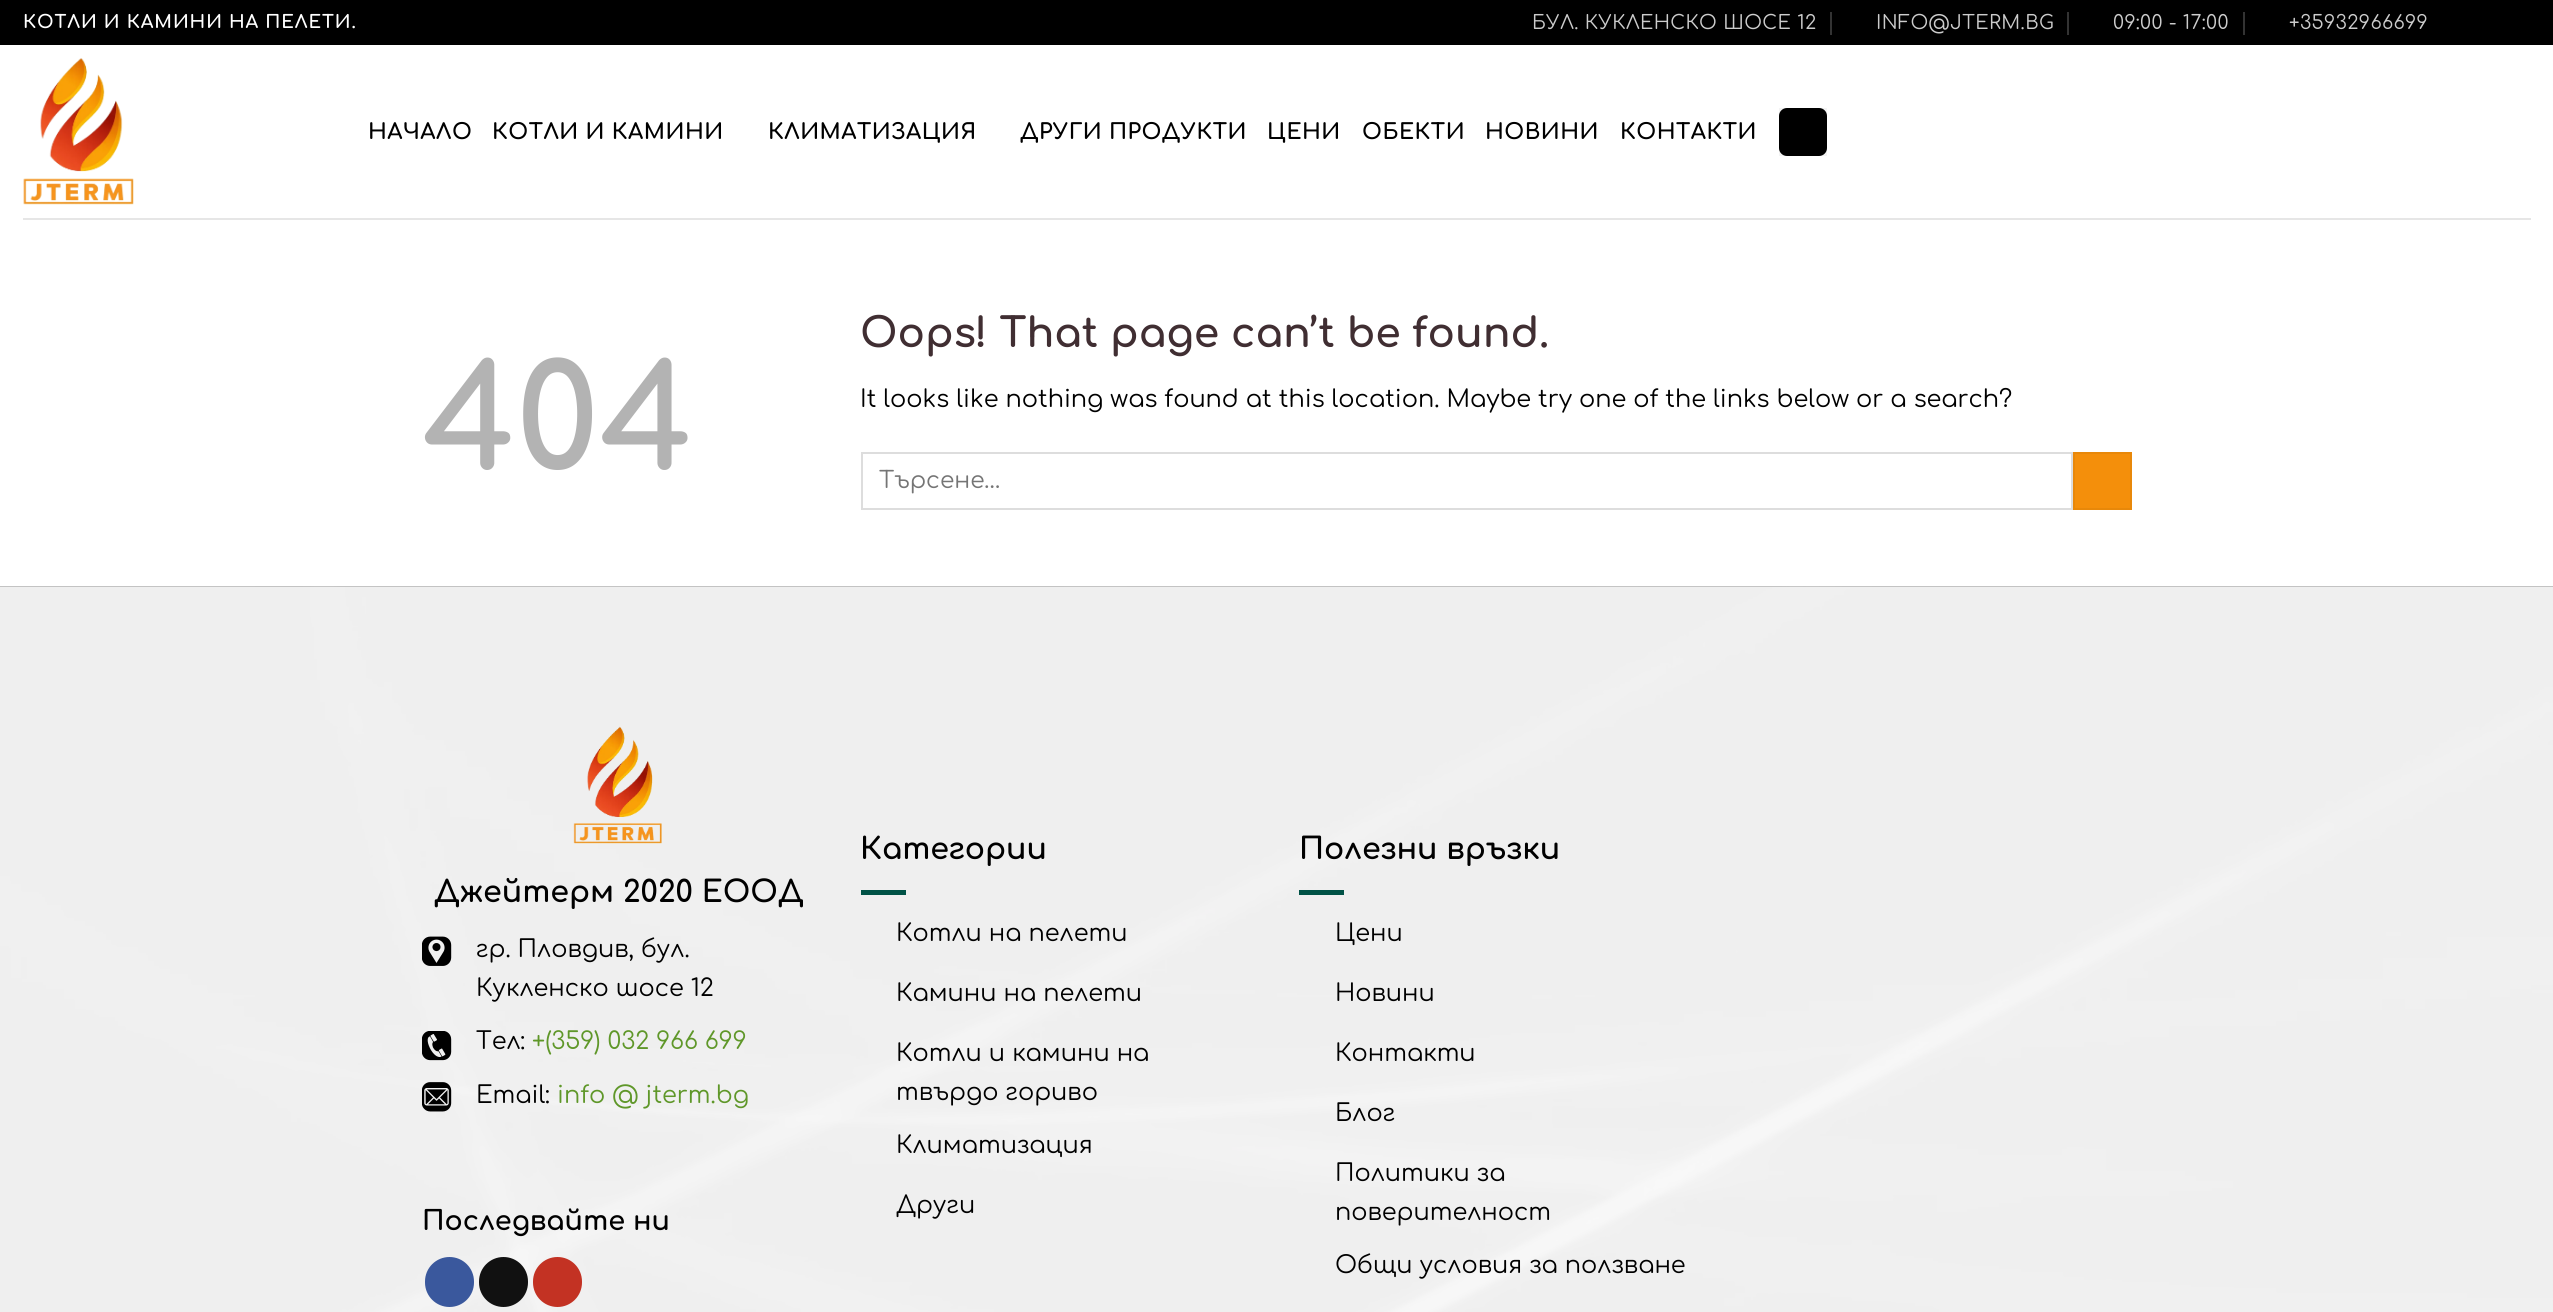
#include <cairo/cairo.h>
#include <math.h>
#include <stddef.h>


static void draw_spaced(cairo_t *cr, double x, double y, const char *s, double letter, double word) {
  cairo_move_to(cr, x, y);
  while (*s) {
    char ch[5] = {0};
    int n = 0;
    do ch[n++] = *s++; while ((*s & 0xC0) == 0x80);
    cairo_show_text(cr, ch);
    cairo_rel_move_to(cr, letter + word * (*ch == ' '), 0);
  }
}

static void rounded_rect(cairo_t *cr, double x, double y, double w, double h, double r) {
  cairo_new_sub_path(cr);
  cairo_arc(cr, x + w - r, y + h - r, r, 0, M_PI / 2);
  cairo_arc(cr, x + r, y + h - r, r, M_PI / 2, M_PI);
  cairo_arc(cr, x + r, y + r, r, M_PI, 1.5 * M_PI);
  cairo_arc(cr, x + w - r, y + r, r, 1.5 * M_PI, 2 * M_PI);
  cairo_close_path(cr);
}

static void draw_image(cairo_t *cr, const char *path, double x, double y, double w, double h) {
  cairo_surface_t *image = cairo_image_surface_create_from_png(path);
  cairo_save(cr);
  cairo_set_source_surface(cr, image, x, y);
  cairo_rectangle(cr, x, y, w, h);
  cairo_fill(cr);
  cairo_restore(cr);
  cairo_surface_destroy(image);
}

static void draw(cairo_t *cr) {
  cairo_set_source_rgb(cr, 1, 1, 1);
  cairo_paint(cr);
  cairo_set_source_rgb(cr, 0, 0, 0);
  cairo_rectangle(cr, 0, 0, 2553, 45);
  cairo_fill(cr);
  cairo_set_source_rgb(cr, 51 / 255.0, 51 / 255.0, 51 / 255.0);
  cairo_rectangle(cr, 1830, 12, 2, 23);
  cairo_fill(cr);
  cairo_rectangle(cr, 2067, 12, 2, 23);
  cairo_fill(cr);
  cairo_rectangle(cr, 2243, 12, 2, 23);
  cairo_fill(cr);
  draw_image(cr, "images/1.png", 23, 58, 111, 147);
  cairo_set_source_rgb(cr, 0, 0, 0);
  rounded_rect(cr, 1779, 108, 48, 48, 8);
  cairo_fill(cr);
  cairo_rectangle(cr, 1780, 109, 46, 46);
  cairo_set_source_rgba(cr, 0, 0, 0, 0.05);
  cairo_stroke(cr);
  cairo_set_source_rgb(cr, 230 / 255.0, 230 / 255.0, 230 / 255.0);
  cairo_rectangle(cr, 23, 218, 2508, 2);
  cairo_fill(cr);
  cairo_rectangle(cr, 862, 453, 1210, 56);
  cairo_set_source_rgb(cr, 221 / 255.0, 221 / 255.0, 221 / 255.0);
  cairo_stroke(cr);
  cairo_set_source_rgb(cr, 244 / 255.0, 143 / 255.0, 11 / 255.0);
  cairo_rectangle(cr, 2074, 453, 57, 56);
  cairo_fill_preserve(cr);
  cairo_set_source_rgb(cr, 232 / 255.0, 136 / 255.0, 10 / 255.0);
  cairo_stroke(cr);
  draw_image(cr, "images/2.png", 0, 586, 2553, 726);
  draw_image(cr, "images/3.png", 573, 726, 89, 118);
  draw_image(cr, "images/4.png", 422, 936, 30, 30);
  draw_image(cr, "images/5.png", 422, 1031, 30, 30);
  draw_image(cr, "images/6.png", 422, 1082, 30, 30);
  cairo_set_source_rgb(cr, 58 / 255.0, 88 / 255.0, 157 / 255.0);
  rounded_rect(cr, 426, 1258, 47, 48, 23.5);
  cairo_fill_preserve(cr);
  cairo_stroke(cr);
  cairo_set_source_rgb(cr, 17 / 255.0, 17 / 255.0, 17 / 255.0);
  rounded_rect(cr, 480, 1258, 47, 48, 23.5);
  cairo_fill_preserve(cr);
  cairo_stroke(cr);
  cairo_set_source_rgb(cr, 195 / 255.0, 50 / 255.0, 35 / 255.0);
  rounded_rect(cr, 534, 1258, 47, 48, 23.5);
  cairo_fill_preserve(cr);
  cairo_stroke(cr);
  cairo_set_source_rgb(cr, 0, 82 / 255.0, 70 / 255.0);
  cairo_rectangle(cr, 861, 890, 45, 5);
  cairo_fill(cr);
  cairo_rectangle(cr, 1299, 890, 45, 5);
  cairo_fill(cr);
  cairo_select_font_face(cr, "Comfortaa", CAIRO_FONT_SLANT_NORMAL, CAIRO_FONT_WEIGHT_BOLD);
  cairo_set_font_size(cr, 18);
  cairo_set_source_rgb(cr, 1, 1, 1);
  draw_spaced(cr, 23, 28, "КОТЛИ И КАМИНИ НА ПЕЛЕТИ.", 0.9, 0);
  cairo_select_font_face(cr, "Comfortaa", CAIRO_FONT_SLANT_NORMAL, CAIRO_FONT_WEIGHT_NORMAL);
  cairo_set_font_size(cr, 19.25);
  cairo_set_source_rgb(cr, 204 / 255.0, 204 / 255.0, 204 / 255.0);
  draw_spaced(cr, 1532, 29, "БУЛ. КУКЛЕНСКО ШОСЕ 12", 0.4, 0);
  draw_spaced(cr, 1876, 29, "INFO@JTERM.BG", 0.4, 0);
  draw_spaced(cr, 2113, 29, "09:00 - 17:00", 0.4, 0);
  draw_spaced(cr, 2289, 29, "+35932966699", 0.4, 0);
  cairo_select_font_face(cr, "Comfortaa", CAIRO_FONT_SLANT_NORMAL, CAIRO_FONT_WEIGHT_BOLD);
  cairo_set_font_size(cr, 21.6);
  cairo_set_source_rgb(cr, 0, 0, 0);
  draw_spaced(cr, 368, 139, "НАЧАЛО", 0.5, 0);
  draw_spaced(cr, 492, 139, "КОТЛИ И КАМИНИ", 0.5, 0);
  draw_spaced(cr, 768, 139, "КЛИМАТИЗАЦИЯ", 0.5, 0);
  draw_spaced(cr, 1020, 139, "ДРУГИ ПРОДУКТИ", 0.5, 0);
  draw_spaced(cr, 1267, 139, "ЦЕНИ", 0.5, 0);
  draw_spaced(cr, 1362, 139, "ОБЕКТИ", 0.5, 0);
  draw_spaced(cr, 1485, 139, "НОВИНИ", 0.5, 0);
  draw_spaced(cr, 1620, 139, "КОНТАКТИ", 0.5, 0);
  cairo_set_font_size(cr, 144);
  cairo_set_source_rgb(cr, 179 / 255.0, 179 / 255.0, 179 / 255.0);
  cairo_move_to(cr, 422, 470);
  cairo_show_text(cr, "404");
  cairo_set_font_size(cr, 40.75);
  cairo_set_source_rgb(cr, 64 / 255.0, 46 / 255.0, 50 / 255.0);
  cairo_move_to(cr, 860, 347);
  cairo_show_text(cr, "Oops! That page can’t be found.");
  cairo_select_font_face(cr, "Comfortaa", CAIRO_FONT_SLANT_NORMAL, CAIRO_FONT_WEIGHT_NORMAL);
  cairo_set_font_size(cr, 24);
  cairo_set_source_rgb(cr, 0, 0, 0);
  cairo_move_to(cr, 860, 407);
  cairo_show_text(cr, "It looks like nothing was found at this location. Maybe try one of the links below or a search?");
  cairo_set_font_size(cr, 23.25);
  cairo_set_source_rgb(cr, 117 / 255.0, 117 / 255.0, 117 / 255.0);
  cairo_move_to(cr, 879, 488);
  cairo_show_text(cr, "Търсене…");
  cairo_select_font_face(cr, "Comfortaa", CAIRO_FONT_SLANT_NORMAL, CAIRO_FONT_WEIGHT_BOLD);
  cairo_set_font_size(cr, 30);
  cairo_set_source_rgb(cr, 0, 0, 0);
  cairo_move_to(cr, 434, 902);
  cairo_show_text(cr, "Джейтерм 2020 ЕООД");
  cairo_select_font_face(cr, "Comfortaa", CAIRO_FONT_SLANT_NORMAL, CAIRO_FONT_WEIGHT_NORMAL);
  cairo_set_font_size(cr, 24);
  cairo_move_to(cr, 476, 957);
  cairo_show_text(cr, "гр. Пловдив, бул.");
  cairo_move_to(cr, 476, 996);
  cairo_show_text(cr, "Кукленско шосе 12");
  cairo_move_to(cr, 476, 1049);
  cairo_show_text(cr, "Тел:");
  cairo_set_source_rgb(cr, 95 / 255.0, 151 / 255.0, 41 / 255.0);
  cairo_move_to(cr, 532, 1049);
  cairo_show_text(cr, "+(359) 032 966 699");
  cairo_set_source_rgb(cr, 0, 0, 0);
  cairo_move_to(cr, 476, 1103);
  cairo_show_text(cr, "Email:");
  cairo_set_source_rgb(cr, 95 / 255.0, 151 / 255.0, 41 / 255.0);
  cairo_move_to(cr, 557, 1103);
  cairo_show_text(cr, "info @ jterm.bg");
  cairo_select_font_face(cr, "Comfortaa", CAIRO_FONT_SLANT_NORMAL, CAIRO_FONT_WEIGHT_BOLD);
  cairo_set_font_size(cr, 27);
  cairo_set_source_rgb(cr, 0, 0, 0);
  cairo_move_to(cr, 422, 1230);
  cairo_show_text(cr, "Последвайте ни");
  cairo_set_font_size(cr, 30);
  cairo_move_to(cr, 860, 859);
  cairo_show_text(cr, "Категории");
  cairo_select_font_face(cr, "Comfortaa", CAIRO_FONT_SLANT_NORMAL, CAIRO_FONT_WEIGHT_NORMAL);
  cairo_set_font_size(cr, 24);
  cairo_move_to(cr, 896, 941);
  cairo_show_text(cr, "Котли на пелети");
  cairo_move_to(cr, 896, 1001);
  cairo_show_text(cr, "Камини на пелети");
  cairo_move_to(cr, 896, 1061);
  cairo_show_text(cr, "Котли и камини на");
  cairo_move_to(cr, 896, 1100);
  cairo_show_text(cr, "твърдо гориво");
  cairo_move_to(cr, 896, 1153);
  cairo_show_text(cr, "Климатизация");
  cairo_move_to(cr, 896, 1213);
  cairo_show_text(cr, "Други");
  cairo_select_font_face(cr, "Comfortaa", CAIRO_FONT_SLANT_NORMAL, CAIRO_FONT_WEIGHT_BOLD);
  cairo_set_font_size(cr, 30);
  cairo_move_to(cr, 1299, 859);
  cairo_show_text(cr, "Полезни връзки");
  cairo_select_font_face(cr, "Comfortaa", CAIRO_FONT_SLANT_NORMAL, CAIRO_FONT_WEIGHT_NORMAL);
  cairo_set_font_size(cr, 24);
  cairo_move_to(cr, 1335, 941);
  cairo_show_text(cr, "Цени");
  cairo_move_to(cr, 1335, 1001);
  cairo_show_text(cr, "Новини");
  cairo_move_to(cr, 1335, 1061);
  cairo_show_text(cr, "Контакти");
  cairo_move_to(cr, 1335, 1121);
  cairo_show_text(cr, "Блог");
  cairo_move_to(cr, 1335, 1181);
  cairo_show_text(cr, "Политики за");
  cairo_move_to(cr, 1335, 1220);
  cairo_show_text(cr, "поверителност");
  cairo_move_to(cr, 1335, 1273);
  cairo_show_text(cr, "Общи условия за ползване");
}

int main(void) {
  cairo_surface_t *surface = cairo_image_surface_create(CAIRO_FORMAT_RGB24, 2553, 1312);
  cairo_t *cr = cairo_create(surface);
  cairo_font_options_t *options = cairo_font_options_create();
  cairo_font_options_set_hint_metrics(options, CAIRO_HINT_METRICS_OFF);
  cairo_font_options_set_hint_style(options, CAIRO_HINT_STYLE_NONE);
  cairo_set_font_options(cr, options);
  cairo_set_miter_limit(cr, 4);
  draw(cr);
  cairo_surface_write_to_png(surface, "out.png");
  cairo_font_options_destroy(options);
  cairo_destroy(cr);
  cairo_surface_destroy(surface);
  return 0;
}
